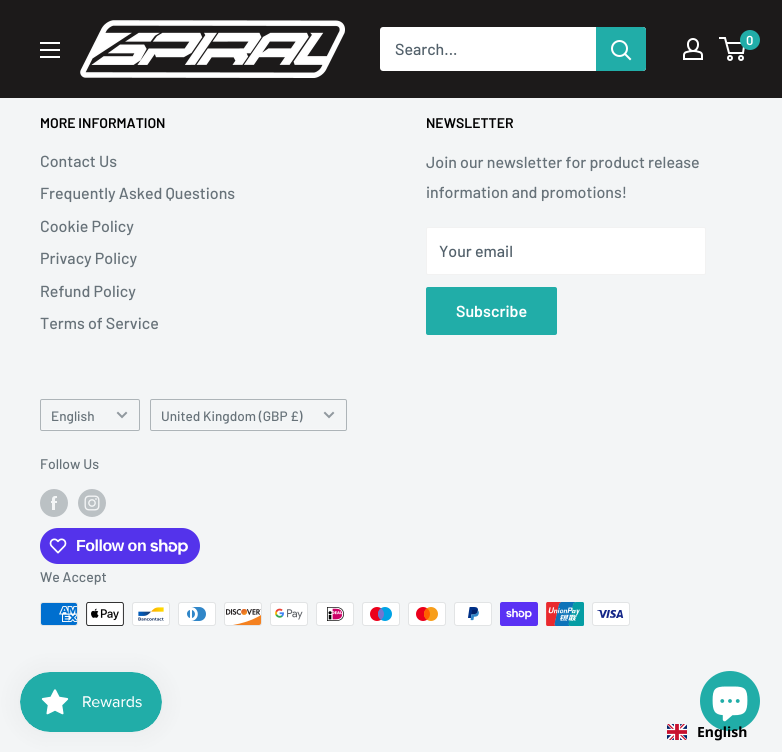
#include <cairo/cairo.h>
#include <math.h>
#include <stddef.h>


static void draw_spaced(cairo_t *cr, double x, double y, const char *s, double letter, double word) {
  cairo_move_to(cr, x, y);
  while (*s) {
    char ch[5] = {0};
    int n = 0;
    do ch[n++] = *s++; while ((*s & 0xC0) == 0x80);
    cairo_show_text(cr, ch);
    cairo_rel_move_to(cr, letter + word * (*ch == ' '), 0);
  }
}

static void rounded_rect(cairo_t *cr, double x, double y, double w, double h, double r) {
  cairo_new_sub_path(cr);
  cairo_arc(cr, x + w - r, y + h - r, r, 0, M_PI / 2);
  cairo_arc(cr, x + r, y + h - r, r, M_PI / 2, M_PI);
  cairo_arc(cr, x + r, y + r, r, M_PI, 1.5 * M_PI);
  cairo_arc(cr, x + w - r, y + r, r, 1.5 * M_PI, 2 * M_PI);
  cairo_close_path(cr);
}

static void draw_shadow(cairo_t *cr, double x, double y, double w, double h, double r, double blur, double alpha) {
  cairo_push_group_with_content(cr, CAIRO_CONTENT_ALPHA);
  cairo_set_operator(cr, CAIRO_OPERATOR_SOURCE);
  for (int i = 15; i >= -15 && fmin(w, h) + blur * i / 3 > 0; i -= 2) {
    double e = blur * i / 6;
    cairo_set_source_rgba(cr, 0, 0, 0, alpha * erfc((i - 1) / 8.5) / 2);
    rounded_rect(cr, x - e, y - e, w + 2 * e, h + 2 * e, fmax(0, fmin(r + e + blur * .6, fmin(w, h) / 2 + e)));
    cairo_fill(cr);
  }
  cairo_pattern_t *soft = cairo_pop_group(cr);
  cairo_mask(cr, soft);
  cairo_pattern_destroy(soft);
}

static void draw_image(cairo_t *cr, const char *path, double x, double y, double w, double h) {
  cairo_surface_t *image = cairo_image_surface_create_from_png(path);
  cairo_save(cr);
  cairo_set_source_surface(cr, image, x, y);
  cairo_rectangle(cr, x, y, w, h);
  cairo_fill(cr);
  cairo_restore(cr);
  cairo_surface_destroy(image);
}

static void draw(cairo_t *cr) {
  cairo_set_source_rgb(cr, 243 / 255.0, 245 / 255.0, 246 / 255.0);
  cairo_paint(cr);
  cairo_set_source_rgb(cr, 28 / 255.0, 26 / 255.0, 26 / 255.0);
  cairo_rectangle(cr, 0, 0, 782, 98);
  cairo_fill(cr);
  draw_image(cr, "images/1.png", 80, 20, 265, 58);
  draw_image(cr, "images/2.png", 683, 38, 20, 22);
  cairo_arc(cr, 730, 58, 2, 0, 2 * M_PI);
  cairo_set_source_rgb(cr, 1, 1, 1);
  cairo_stroke(cr);
  cairo_arc(cr, 741, 58, 2, 0, 2 * M_PI);
  cairo_stroke(cr);
  cairo_new_path(cr);
  cairo_move_to(cr, 726.5, 43);
  cairo_line_to(cr, 744.5, 43);
  cairo_line_to(cr, 743, 53);
  cairo_line_to(cr, 729, 53);
  cairo_line_to(cr, 725, 38);
  cairo_line_to(cr, 719, 38);
  cairo_stroke(cr);
  cairo_set_source_rgb(cr, 33 / 255.0, 173 / 255.0, 168 / 255.0);
  cairo_arc(cr, 750, 40, 10, 0, 2 * M_PI);
  cairo_fill(cr);
  draw_image(cr, "images/3.png", 40, 42, 20, 16);
  cairo_set_source_rgb(cr, 1, 1, 1);
  rounded_rect(cr, 380, 27, 266, 44, 3);
  cairo_fill(cr);
  cairo_set_source_rgb(cr, 33 / 255.0, 173 / 255.0, 168 / 255.0);
  cairo_new_path(cr);
  cairo_move_to(cr, 596, 27);
  cairo_line_to(cr, 643, 27);
  cairo_curve_to(cr, 644.5, 27, 646, 28.5, 646, 30);
  cairo_line_to(cr, 646, 68);
  cairo_curve_to(cr, 646, 69.5, 644.5, 71, 643, 71);
  cairo_line_to(cr, 596, 71);
  cairo_close_path(cr);
  cairo_fill(cr);
  cairo_new_path(cr);
  cairo_move_to(cr, 630, 59);
  cairo_line_to(cr, 625, 54);
  cairo_set_source_rgb(cr, 1, 1, 1);
  cairo_set_line_cap(cr, CAIRO_LINE_CAP_SQUARE);
  cairo_stroke(cr);
  cairo_arc(cr, 619.5, 48.5, 7.5, 0, 2 * M_PI);
  cairo_set_line_cap(cr, CAIRO_LINE_CAP_BUTT);
  cairo_stroke(cr);
  rounded_rect(cr, 426.5, 227.5, 279, 47, 1.5);
  cairo_fill_preserve(cr);
  cairo_set_source_rgb(cr, 242 / 255.0, 242 / 255.0, 242 / 255.0);
  cairo_set_line_width(cr, 1);
  cairo_stroke(cr);
  cairo_set_source_rgb(cr, 33 / 255.0, 173 / 255.0, 168 / 255.0);
  rounded_rect(cr, 426, 287, 131, 48, 2);
  cairo_fill(cr);
  cairo_set_source_rgb(cr, 247 / 255.0, 248 / 255.0, 249 / 255.0);
  cairo_new_path(cr);
  cairo_move_to(cr, 41, 428);
  cairo_curve_to(cr, 41, 429, 41, 430, 42, 430);
  cairo_line_to(cr, 138, 430);
  cairo_curve_to(cr, 139, 430, 139, 429, 139, 428);
  cairo_curve_to(cr, 139, 429, 139, 429, 138, 429);
  cairo_line_to(cr, 42, 429);
  cairo_curve_to(cr, 41, 429, 41, 429, 41, 428);
  cairo_close_path(cr);
  cairo_fill(cr);
  rounded_rect(cr, 40.5, 399.5, 99, 31, 1.5);
  cairo_set_source_rgb(cr, 173 / 255.0, 180 / 255.0, 184 / 255.0);
  cairo_stroke(cr);
  cairo_new_path(cr);
  cairo_move_to(cr, 126, 413);
  cairo_line_to(cr, 122, 417);
  cairo_line_to(cr, 118, 413);
  cairo_set_source_rgb(cr, 145 / 255.0, 153 / 255.0, 159 / 255.0);
  cairo_set_line_width(cr, 2);
  cairo_set_line_cap(cr, CAIRO_LINE_CAP_SQUARE);
  cairo_stroke(cr);
  cairo_set_source_rgb(cr, 247 / 255.0, 248 / 255.0, 249 / 255.0);
  cairo_new_path(cr);
  cairo_move_to(cr, 151, 428);
  cairo_curve_to(cr, 151, 429, 151, 430, 152, 430);
  cairo_line_to(cr, 346, 430);
  cairo_line_to(cr, 346, 428);
  cairo_line_to(cr, 346, 429);
  cairo_line_to(cr, 152, 429);
  cairo_curve_to(cr, 151, 429, 151, 429, 151, 428);
  cairo_close_path(cr);
  cairo_fill(cr);
  rounded_rect(cr, 150.5, 399.5, 196, 31, 1.5);
  cairo_set_source_rgb(cr, 173 / 255.0, 180 / 255.0, 184 / 255.0);
  cairo_set_line_width(cr, 1);
  cairo_set_line_cap(cr, CAIRO_LINE_CAP_BUTT);
  cairo_stroke(cr);
  cairo_new_path(cr);
  cairo_move_to(cr, 333, 413);
  cairo_line_to(cr, 329, 417);
  cairo_line_to(cr, 325, 413);
  cairo_set_source_rgb(cr, 145 / 255.0, 153 / 255.0, 159 / 255.0);
  cairo_set_line_width(cr, 2);
  cairo_set_line_cap(cr, CAIRO_LINE_CAP_SQUARE);
  cairo_stroke(cr);
  draw_image(cr, "images/4.png", 40, 489, 28, 28);
  draw_image(cr, "images/5.png", 78, 489, 28, 28);
  cairo_set_source_rgb(cr, 84 / 255.0, 51 / 255.0, 235 / 255.0);
  rounded_rect(cr, 40, 528, 160, 36, 18);
  cairo_fill(cr);
  draw_image(cr, "images/6.png", 49, 538, 18, 16);
  draw_image(cr, "images/7.png", 150, 539, 38, 16);
  draw_image(cr, "images/8.png", 40, 602, 38, 24);
  draw_image(cr, "images/9.png", 86, 602, 38, 24);
  draw_image(cr, "images/10.png", 132, 602, 38, 24);
  draw_image(cr, "images/11.png", 178, 602, 38, 24);
  draw_image(cr, "images/12.png", 224, 602, 38, 24);
  draw_image(cr, "images/13.png", 270, 602, 38, 24);
  draw_image(cr, "images/14.png", 316, 602, 38, 24);
  draw_image(cr, "images/15.png", 362, 602, 38, 24);
  draw_image(cr, "images/16.png", 408, 602, 38, 24);
  draw_image(cr, "images/17.png", 454, 602, 38, 24);
  draw_image(cr, "images/18.png", 500, 602, 38, 24);
  draw_image(cr, "images/19.png", 546, 602, 38, 24);
  draw_image(cr, "images/20.png", 592, 602, 38, 24);
  cairo_set_source_rgb(cr, 0, 0, 0);
  draw_shadow(cr, 20, 672, 142, 60, 30, 12.5, 0.05);
  draw_image(cr, "images/21.png", 20, 672, 142, 60);
  cairo_set_source_rgb(cr, 33 / 255.0, 173 / 255.0, 168 / 255.0);
  cairo_arc(cr, 730, 701, 30, 0, 2 * M_PI);
  cairo_fill(cr);
  draw_image(cr, "images/22.png", 712, 686, 36, 36);
  draw_image(cr, "images/23.png", 667, 724, 20, 16);
  cairo_select_font_face(cr, "Barlow SemiBold", CAIRO_FONT_SLANT_NORMAL, CAIRO_FONT_WEIGHT_NORMAL);
  cairo_set_font_size(cr, 13);
  cairo_set_source_rgb(cr, 1, 1, 1);
  cairo_move_to(cr, 746, 45);
  cairo_show_text(cr, "0");
  cairo_select_font_face(cr, "Barlow Medium", CAIRO_FONT_SLANT_NORMAL, CAIRO_FONT_WEIGHT_NORMAL);
  cairo_set_font_size(cr, 16);
  cairo_set_source_rgb(cr, 83 / 255.0, 97 / 255.0, 107 / 255.0);
  cairo_move_to(cr, 395, 55);
  cairo_show_text(cr, "Search...");
  cairo_select_font_face(cr, "Barlow SemiBold", CAIRO_FONT_SLANT_NORMAL, CAIRO_FONT_WEIGHT_NORMAL);
  cairo_set_font_size(cr, 14);
  cairo_set_source_rgb(cr, 0, 0, 0);
  cairo_move_to(cr, 40, 128);
  cairo_show_text(cr, "MORE INFORMATION");
  cairo_select_font_face(cr, "Barlow Medium", CAIRO_FONT_SLANT_NORMAL, CAIRO_FONT_WEIGHT_NORMAL);
  cairo_set_font_size(cr, 16);
  cairo_set_source_rgb(cr, 103 / 255.0, 114 / 255.0, 121 / 255.0);
  cairo_move_to(cr, 40, 167);
  cairo_show_text(cr, "Contact Us");
  cairo_move_to(cr, 40, 199);
  cairo_show_text(cr, "Frequently Asked Questions");
  cairo_move_to(cr, 40, 232);
  cairo_show_text(cr, "Cookie Policy");
  cairo_move_to(cr, 40, 264);
  cairo_show_text(cr, "Privacy Policy");
  cairo_move_to(cr, 40, 297);
  cairo_show_text(cr, "Refund Policy");
  cairo_move_to(cr, 40, 329);
  cairo_show_text(cr, "Terms of Service");
  cairo_select_font_face(cr, "Barlow SemiBold", CAIRO_FONT_SLANT_NORMAL, CAIRO_FONT_WEIGHT_NORMAL);
  cairo_set_font_size(cr, 14);
  cairo_set_source_rgb(cr, 0, 0, 0);
  cairo_move_to(cr, 426, 128);
  cairo_show_text(cr, "NEWSLETTER");
  cairo_select_font_face(cr, "Barlow Medium", CAIRO_FONT_SLANT_NORMAL, CAIRO_FONT_WEIGHT_NORMAL);
  cairo_set_font_size(cr, 16);
  cairo_set_source_rgb(cr, 103 / 255.0, 114 / 255.0, 121 / 255.0);
  cairo_move_to(cr, 426, 168);
  cairo_show_text(cr, "Join our newsletter for product release");
  cairo_move_to(cr, 426, 198);
  cairo_show_text(cr, "information and promotions!");
  cairo_set_source_rgb(cr, 83 / 255.0, 97 / 255.0, 107 / 255.0);
  cairo_move_to(cr, 439, 257);
  cairo_show_text(cr, "Your email");
  cairo_select_font_face(cr, "Barlow SemiBold", CAIRO_FONT_SLANT_NORMAL, CAIRO_FONT_WEIGHT_NORMAL);
  cairo_set_source_rgb(cr, 1, 1, 1);
  cairo_move_to(cr, 456, 317);
  cairo_show_text(cr, "Subscribe");
  cairo_select_font_face(cr, "Barlow Medium", CAIRO_FONT_SLANT_NORMAL, CAIRO_FONT_WEIGHT_NORMAL);
  cairo_set_font_size(cr, 13.6);
  cairo_set_source_rgb(cr, 103 / 255.0, 114 / 255.0, 121 / 255.0);
  cairo_move_to(cr, 51, 421);
  cairo_show_text(cr, "English");
  cairo_move_to(cr, 161, 421);
  cairo_show_text(cr, "United Kingdom (GBP £)");
  cairo_set_font_size(cr, 14);
  cairo_move_to(cr, 40, 469);
  cairo_show_text(cr, "Follow Us");
  cairo_select_font_face(cr, "Liberation Sans", CAIRO_FONT_SLANT_NORMAL, CAIRO_FONT_WEIGHT_BOLD);
  cairo_set_font_size(cr, 16);
  cairo_set_source_rgb(cr, 1, 1, 1);
  draw_spaced(cr, 76, 551, "Follow on", -0.5, 0);
  cairo_select_font_face(cr, "Barlow Medium", CAIRO_FONT_SLANT_NORMAL, CAIRO_FONT_WEIGHT_NORMAL);
  cairo_set_font_size(cr, 14);
  cairo_set_source_rgb(cr, 103 / 255.0, 114 / 255.0, 121 / 255.0);
  cairo_move_to(cr, 40, 582);
  cairo_show_text(cr, "We Accept");
  cairo_select_font_face(cr, "Noto Sans", CAIRO_FONT_SLANT_NORMAL, CAIRO_FONT_WEIGHT_BOLD);
  cairo_set_source_rgb(cr, 0, 0, 0);
  cairo_move_to(cr, 697, 737);
  cairo_show_text(cr, "English");
}

int main(void) {
  cairo_surface_t *surface = cairo_image_surface_create(CAIRO_FORMAT_RGB24, 782, 752);
  cairo_t *cr = cairo_create(surface);
  cairo_font_options_t *options = cairo_font_options_create();
  cairo_font_options_set_hint_metrics(options, CAIRO_HINT_METRICS_OFF);
  cairo_font_options_set_hint_style(options, CAIRO_HINT_STYLE_NONE);
  cairo_set_font_options(cr, options);
  cairo_set_miter_limit(cr, 4);
  draw(cr);
  cairo_surface_write_to_png(surface, "out.png");
  cairo_font_options_destroy(options);
  cairo_destroy(cr);
  cairo_surface_destroy(surface);
  return 0;
}
